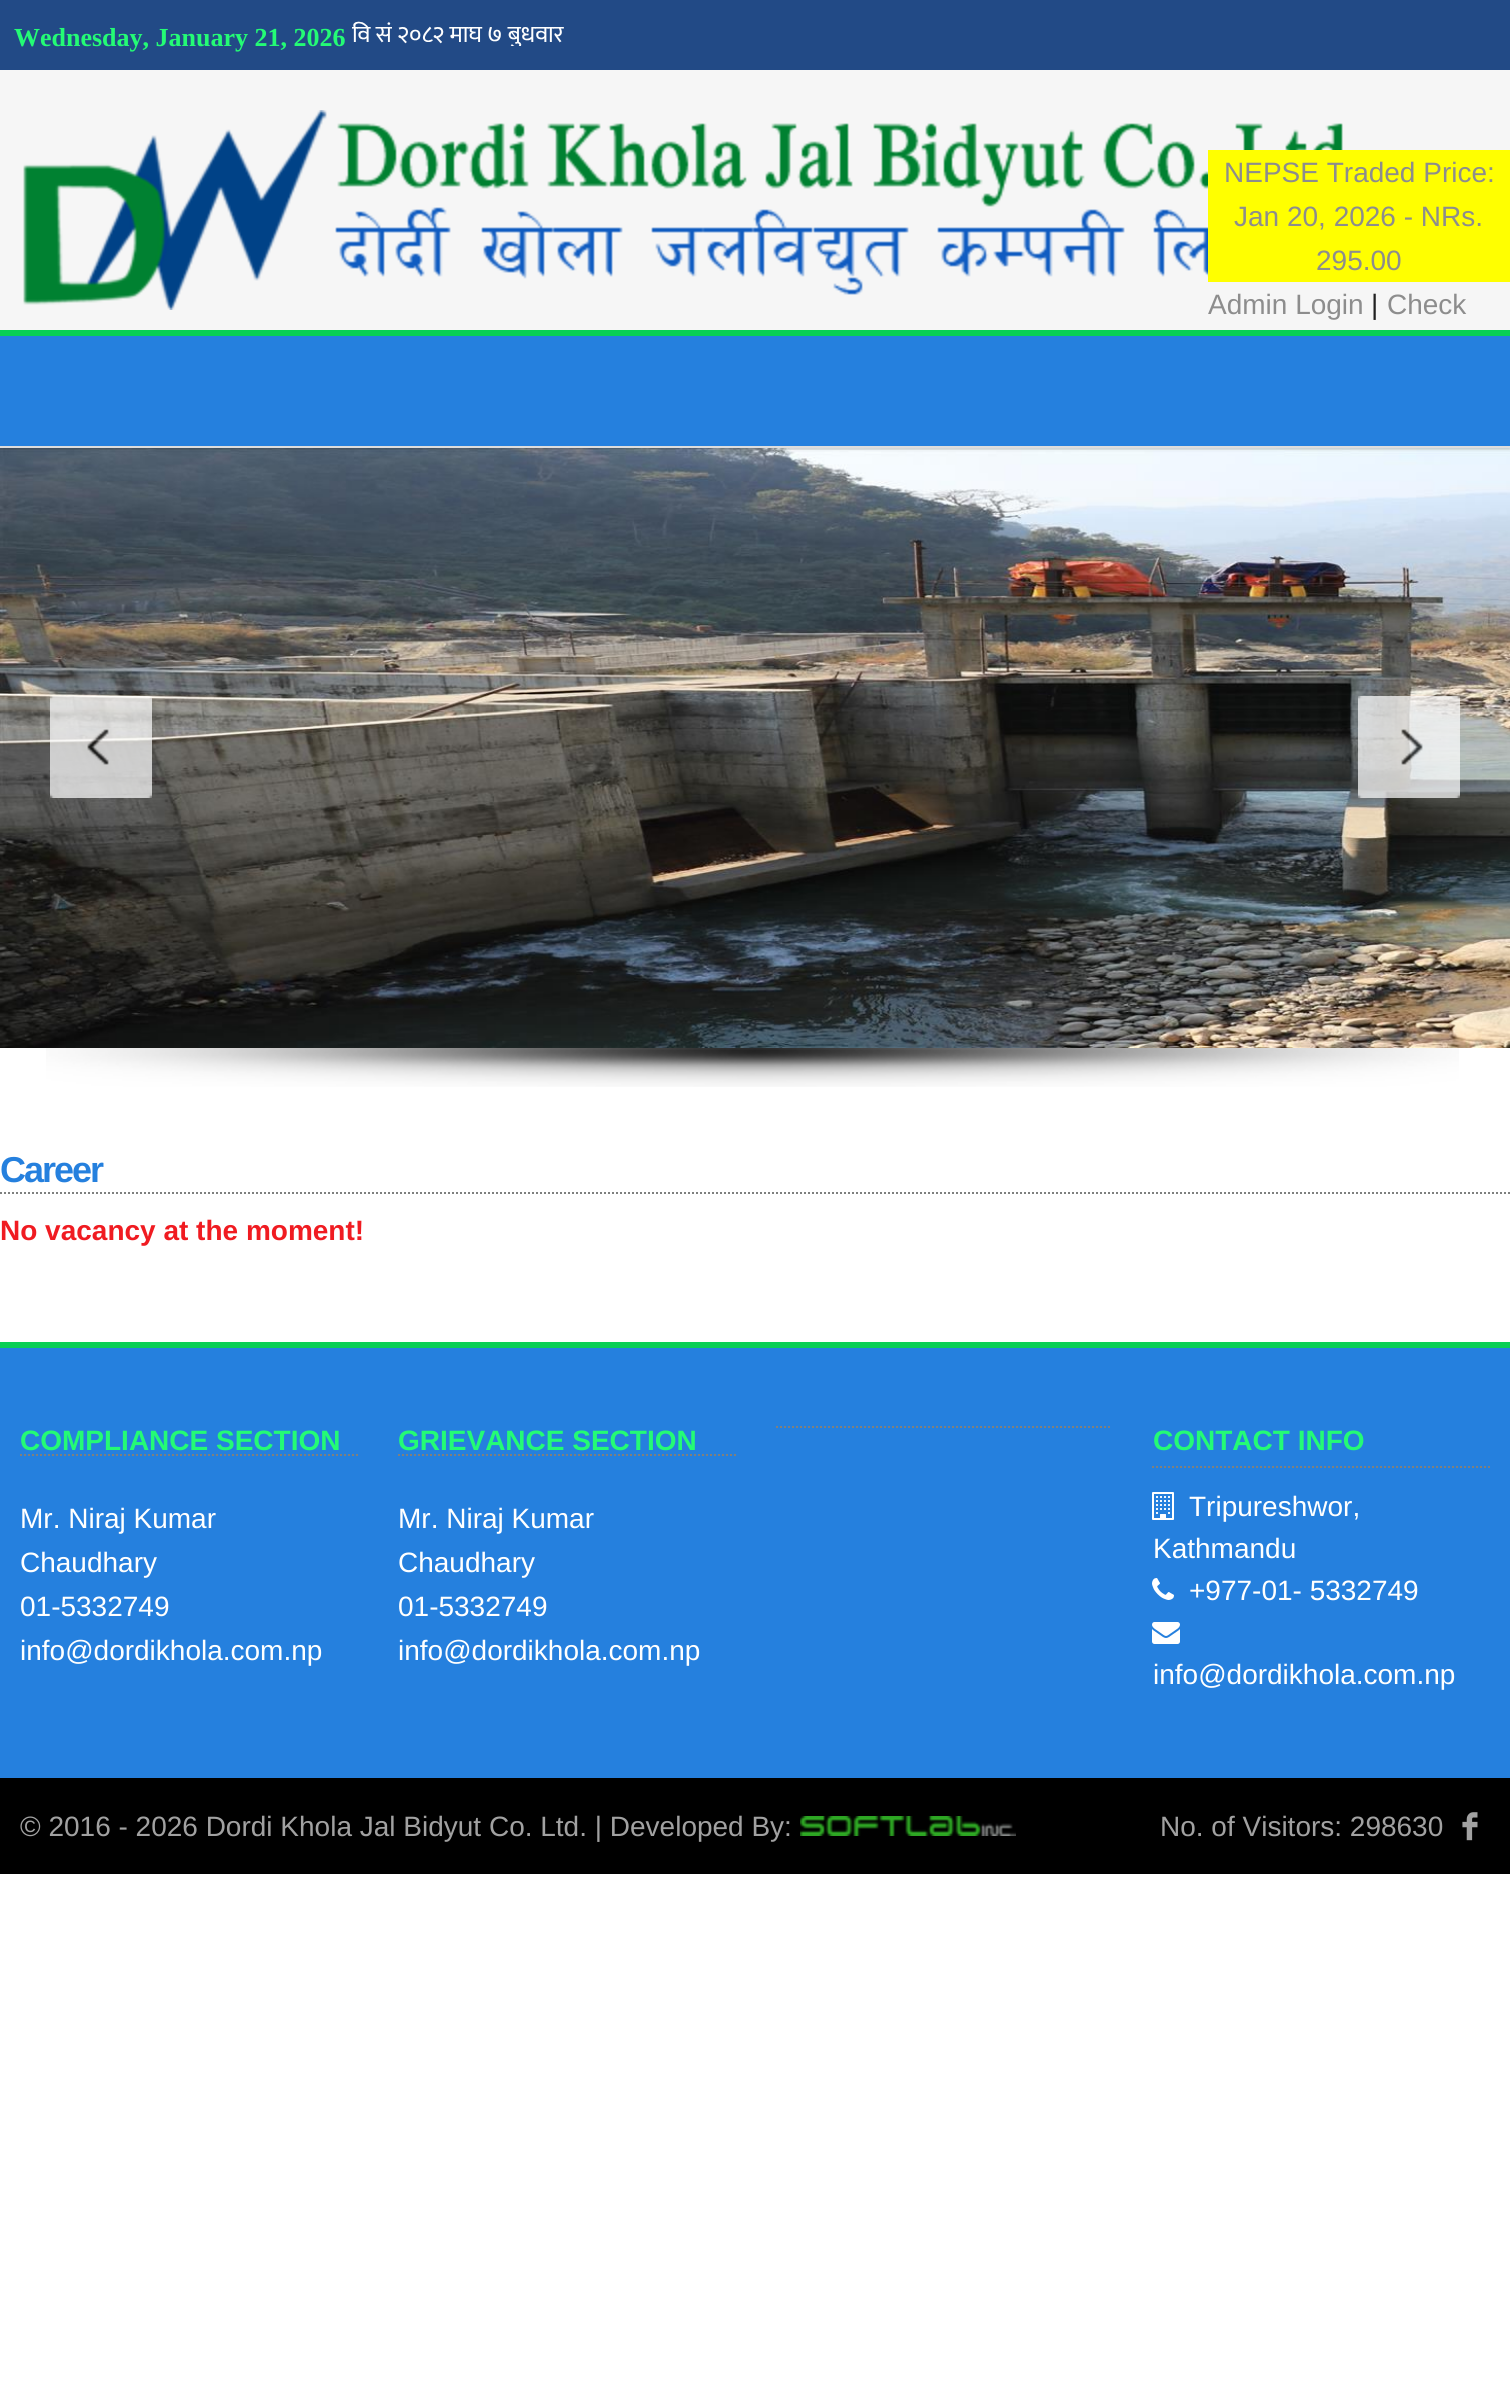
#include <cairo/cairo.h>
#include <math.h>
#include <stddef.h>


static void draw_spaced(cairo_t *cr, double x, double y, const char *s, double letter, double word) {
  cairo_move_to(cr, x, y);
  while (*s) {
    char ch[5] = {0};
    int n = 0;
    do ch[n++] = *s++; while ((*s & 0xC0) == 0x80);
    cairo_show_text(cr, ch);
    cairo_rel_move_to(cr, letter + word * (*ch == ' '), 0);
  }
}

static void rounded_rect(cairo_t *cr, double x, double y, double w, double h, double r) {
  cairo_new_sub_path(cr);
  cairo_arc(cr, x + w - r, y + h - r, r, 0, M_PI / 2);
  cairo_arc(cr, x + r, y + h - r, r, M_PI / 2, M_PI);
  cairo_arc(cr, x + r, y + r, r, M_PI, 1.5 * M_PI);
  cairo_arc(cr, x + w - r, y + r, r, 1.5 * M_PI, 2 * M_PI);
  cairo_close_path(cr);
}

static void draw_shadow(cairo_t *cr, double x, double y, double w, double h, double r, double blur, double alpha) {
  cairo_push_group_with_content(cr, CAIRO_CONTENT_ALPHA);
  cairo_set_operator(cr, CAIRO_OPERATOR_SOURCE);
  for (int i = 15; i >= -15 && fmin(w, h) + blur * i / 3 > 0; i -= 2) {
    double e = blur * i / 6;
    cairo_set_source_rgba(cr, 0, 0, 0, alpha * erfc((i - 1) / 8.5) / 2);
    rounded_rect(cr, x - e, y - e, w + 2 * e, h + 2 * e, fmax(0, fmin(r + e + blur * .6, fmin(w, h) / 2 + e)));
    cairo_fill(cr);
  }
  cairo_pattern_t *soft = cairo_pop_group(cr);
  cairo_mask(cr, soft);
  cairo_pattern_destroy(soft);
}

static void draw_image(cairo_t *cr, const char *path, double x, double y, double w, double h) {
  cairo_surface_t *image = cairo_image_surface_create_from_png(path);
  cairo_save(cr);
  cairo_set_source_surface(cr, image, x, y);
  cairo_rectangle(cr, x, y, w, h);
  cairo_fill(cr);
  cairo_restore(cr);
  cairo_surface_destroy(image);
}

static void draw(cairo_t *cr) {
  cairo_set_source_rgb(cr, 1, 1, 1);
  cairo_paint(cr);
  cairo_set_source_rgb(cr, 34 / 255.0, 74 / 255.0, 134 / 255.0);
  cairo_rectangle(cr, 0, 0, 1510, 70);
  cairo_fill(cr);
  draw_image(cr, "images/1.png", 352, 21, 212, 25);
  cairo_set_source_rgb(cr, 246 / 255.0, 246 / 255.0, 246 / 255.0);
  cairo_rectangle(cr, 0, 70, 1510, 260);
  cairo_fill(cr);
  draw_image(cr, "images/2.png", 23, 110, 1320, 200);
  cairo_set_source_rgb(cr, 1, 1, 0);
  cairo_rectangle(cr, 1208, 150, 302, 132);
  cairo_fill(cr);
  draw_image(cr, "images/3.png", 0, 448, 1510, 600);
  cairo_set_source_rgba(cr, 0, 0, 0, 0.06);
  cairo_rectangle(cr, 0, 448, 1510, 2);
  cairo_fill(cr);
  cairo_set_source_rgb(cr, 0, 0, 0);
  draw_shadow(cr, 0, 332, 1510, 118, 0, 1, 0.1);
  cairo_set_source_rgb(cr, 37 / 255.0, 128 / 255.0, 222 / 255.0);
  cairo_rectangle(cr, 0, 336, 1510, 110);
  cairo_fill(cr);
  cairo_set_source_rgb(cr, 9 / 255.0, 207 / 255.0, 84 / 255.0);
  cairo_rectangle(cr, 0, 330, 1510, 6);
  cairo_fill(cr);
  cairo_set_source_rgb(cr, 221 / 255.0, 221 / 255.0, 221 / 255.0);
  cairo_rectangle(cr, 0, 446, 1510, 2);
  cairo_fill(cr);
  draw_image(cr, "images/4.png", 50, 696, 102, 102);
  draw_image(cr, "images/5.png", 1358, 696, 102, 102);
  draw_image(cr, "images/6.png", 46, 1048, 1413, 39);
  cairo_new_path(cr);
  cairo_move_to(cr, 0, 1193);
  cairo_line_to(cr, 1510, 1193);
  cairo_set_source_rgb(cr, 126 / 255.0, 128 / 255.0, 127 / 255.0);
  cairo_set_dash(cr, (double[]){2, 2}, 2, 0);
  cairo_stroke(cr);
  cairo_set_source_rgb(cr, 37 / 255.0, 128 / 255.0, 222 / 255.0);
  cairo_rectangle(cr, 0, 1348, 1510, 430);
  cairo_fill(cr);
  cairo_set_source_rgb(cr, 9 / 255.0, 207 / 255.0, 84 / 255.0);
  cairo_rectangle(cr, 0, 1342, 1510, 6);
  cairo_fill(cr);
  cairo_new_path(cr);
  cairo_move_to(cr, 776, 1427);
  cairo_line_to(cr, 1112, 1427);
  cairo_set_source_rgb(cr, 126 / 255.0, 128 / 255.0, 127 / 255.0);
  cairo_stroke(cr);
  cairo_new_path(cr);
  cairo_move_to(cr, 20, 1455);
  cairo_line_to(cr, 358, 1455);
  cairo_stroke(cr);
  cairo_new_path(cr);
  cairo_move_to(cr, 398, 1455);
  cairo_line_to(cr, 736, 1455);
  cairo_stroke(cr);
  cairo_new_path(cr);
  cairo_move_to(cr, 1152, 1467);
  cairo_line_to(cr, 1490, 1467);
  cairo_stroke(cr);
  draw_image(cr, "images/7.png", 1152, 1492, 22, 28);
  draw_image(cr, "images/8.png", 1152, 1578, 22, 22);
  draw_image(cr, "images/9.png", 1152, 1622, 28, 22);
  cairo_set_source_rgb(cr, 0, 0, 0);
  cairo_rectangle(cr, 0, 1778, 1510, 96);
  cairo_fill(cr);
  draw_image(cr, "images/10.png", 800, 1816, 216, 20);
  draw_image(cr, "images/11.png", 1462, 1812, 16, 29);
  cairo_select_font_face(cr, "Liberation Serif", CAIRO_FONT_SLANT_NORMAL, CAIRO_FONT_WEIGHT_BOLD);
  cairo_set_font_size(cr, 26);
  cairo_set_source_rgb(cr, 36 / 255.0, 251 / 255.0, 117 / 255.0);
  cairo_move_to(cr, 14, 46);
  cairo_show_text(cr, "Wednesday, January 21, 2026");
  cairo_select_font_face(cr, "Liberation Sans", CAIRO_FONT_SLANT_NORMAL, CAIRO_FONT_WEIGHT_NORMAL);
  cairo_set_font_size(cr, 28);
  cairo_set_source_rgb(cr, 141 / 255.0, 141 / 255.0, 141 / 255.0);
  cairo_move_to(cr, 1224, 182);
  cairo_show_text(cr, "NEPSE Traded Price:");
  cairo_move_to(cr, 1234, 226);
  cairo_show_text(cr, "Jan 20, 2026 - NRs.");
  cairo_move_to(cr, 1316, 270);
  cairo_show_text(cr, "295.00");
  cairo_move_to(cr, 1208, 314);
  cairo_show_text(cr, "Admin Login");
  cairo_set_source_rgb(cr, 33 / 255.0, 33 / 255.0, 33 / 255.0);
  cairo_move_to(cr, 1371, 314);
  cairo_show_text(cr, "|");
  cairo_set_source_rgb(cr, 141 / 255.0, 141 / 255.0, 141 / 255.0);
  cairo_move_to(cr, 1387, 314);
  cairo_show_text(cr, "Check");
  cairo_select_font_face(cr, "Liberation Sans", CAIRO_FONT_SLANT_NORMAL, CAIRO_FONT_WEIGHT_BOLD);
  cairo_set_font_size(cr, 36);
  cairo_set_source_rgb(cr, 37 / 255.0, 128 / 255.0, 222 / 255.0);
  draw_spaced(cr, 0, 1182, "Career", -2, 0);
  cairo_set_font_size(cr, 28);
  cairo_set_source_rgb(cr, 240 / 255.0, 27 / 255.0, 33 / 255.0);
  cairo_move_to(cr, 0, 1240);
  cairo_show_text(cr, "No vacancy at the moment!");
  cairo_set_source_rgb(cr, 36 / 255.0, 251 / 255.0, 117 / 255.0);
  cairo_move_to(cr, 20, 1450);
  cairo_show_text(cr, "COMPLIANCE SECTION");
  cairo_select_font_face(cr, "Liberation Sans", CAIRO_FONT_SLANT_NORMAL, CAIRO_FONT_WEIGHT_NORMAL);
  cairo_set_source_rgb(cr, 1, 1, 1);
  cairo_move_to(cr, 20, 1528);
  cairo_show_text(cr, "Mr. Niraj Kumar");
  cairo_move_to(cr, 20, 1572);
  cairo_show_text(cr, "Chaudhary");
  cairo_move_to(cr, 20, 1616);
  cairo_show_text(cr, "01-5332749");
  cairo_move_to(cr, 20, 1660);
  cairo_show_text(cr, "info@dordikhola.com.np");
  cairo_select_font_face(cr, "Liberation Sans", CAIRO_FONT_SLANT_NORMAL, CAIRO_FONT_WEIGHT_BOLD);
  cairo_set_source_rgb(cr, 36 / 255.0, 251 / 255.0, 117 / 255.0);
  cairo_move_to(cr, 398, 1450);
  cairo_show_text(cr, "GRIEVANCE SECTION");
  cairo_select_font_face(cr, "Liberation Sans", CAIRO_FONT_SLANT_NORMAL, CAIRO_FONT_WEIGHT_NORMAL);
  cairo_set_source_rgb(cr, 1, 1, 1);
  cairo_move_to(cr, 398, 1528);
  cairo_show_text(cr, "Mr. Niraj Kumar");
  cairo_move_to(cr, 398, 1572);
  cairo_show_text(cr, "Chaudhary");
  cairo_move_to(cr, 398, 1616);
  cairo_show_text(cr, "01-5332749");
  cairo_move_to(cr, 398, 1660);
  cairo_show_text(cr, "info@dordikhola.com.np");
  cairo_select_font_face(cr, "Liberation Sans", CAIRO_FONT_SLANT_NORMAL, CAIRO_FONT_WEIGHT_BOLD);
  cairo_set_source_rgb(cr, 36 / 255.0, 251 / 255.0, 117 / 255.0);
  cairo_move_to(cr, 1153, 1450);
  cairo_show_text(cr, "CONTACT INFO");
  cairo_select_font_face(cr, "Liberation Sans", CAIRO_FONT_SLANT_NORMAL, CAIRO_FONT_WEIGHT_NORMAL);
  cairo_set_source_rgb(cr, 1, 1, 1);
  cairo_move_to(cr, 1189, 1516);
  cairo_show_text(cr, "Tripureshwor,");
  cairo_move_to(cr, 1153, 1558);
  cairo_show_text(cr, "Kathmandu");
  cairo_move_to(cr, 1189, 1600);
  cairo_show_text(cr, "+977-01- 5332749");
  cairo_move_to(cr, 1153, 1684);
  cairo_show_text(cr, "info@dordikhola.com.np");
  cairo_set_source_rgb(cr, 161 / 255.0, 161 / 255.0, 161 / 255.0);
  cairo_move_to(cr, 20, 1836);
  cairo_show_text(cr, "© 2016 - 2026 Dordi Khola Jal Bidyut Co. Ltd. | Developed By:");
  cairo_move_to(cr, 1160, 1836);
  cairo_show_text(cr, "No. of Visitors: 298630");
}

int main(void) {
  cairo_surface_t *surface = cairo_image_surface_create(CAIRO_FORMAT_RGB24, 1510, 2382);
  cairo_t *cr = cairo_create(surface);
  cairo_font_options_t *options = cairo_font_options_create();
  cairo_font_options_set_hint_metrics(options, CAIRO_HINT_METRICS_OFF);
  cairo_font_options_set_hint_style(options, CAIRO_HINT_STYLE_NONE);
  cairo_set_font_options(cr, options);
  cairo_set_miter_limit(cr, 4);
  draw(cr);
  cairo_surface_write_to_png(surface, "out.png");
  cairo_font_options_destroy(options);
  cairo_destroy(cr);
  cairo_surface_destroy(surface);
  return 0;
}
